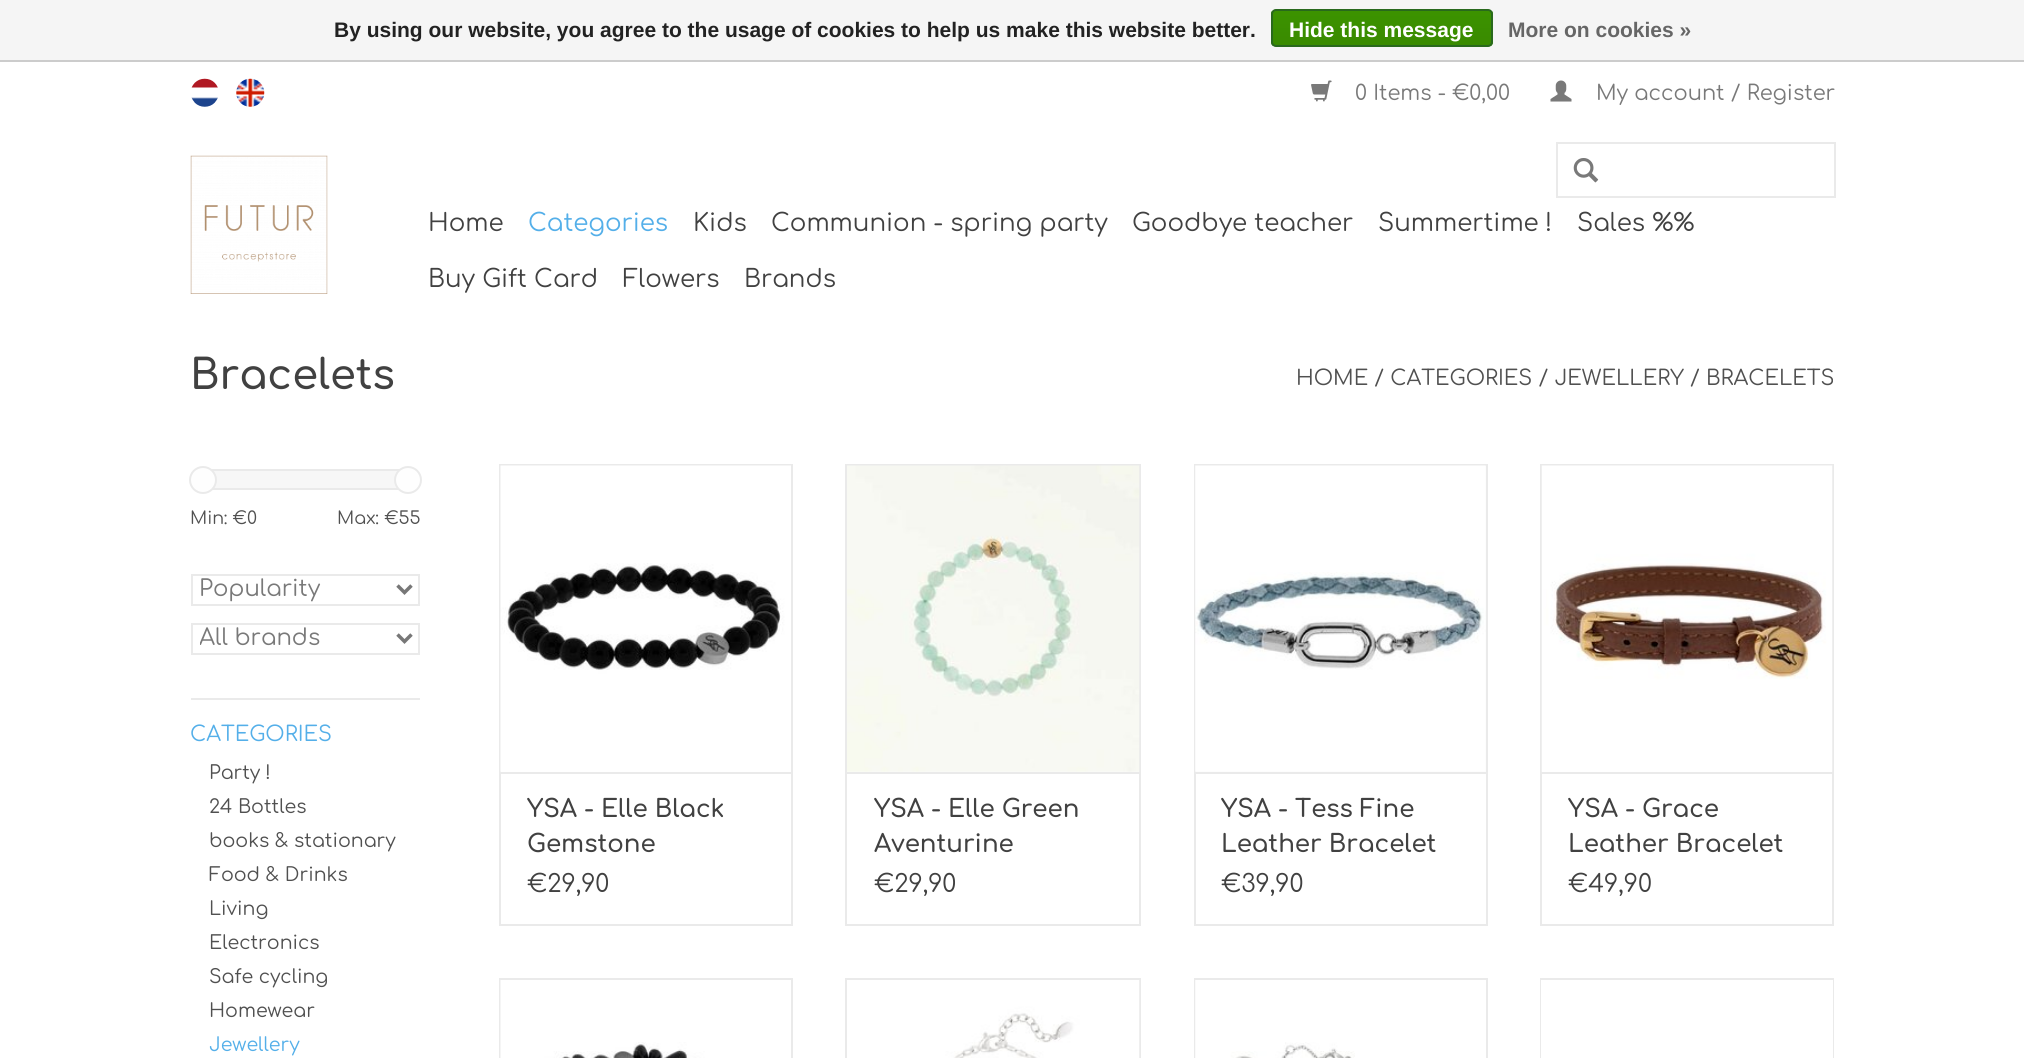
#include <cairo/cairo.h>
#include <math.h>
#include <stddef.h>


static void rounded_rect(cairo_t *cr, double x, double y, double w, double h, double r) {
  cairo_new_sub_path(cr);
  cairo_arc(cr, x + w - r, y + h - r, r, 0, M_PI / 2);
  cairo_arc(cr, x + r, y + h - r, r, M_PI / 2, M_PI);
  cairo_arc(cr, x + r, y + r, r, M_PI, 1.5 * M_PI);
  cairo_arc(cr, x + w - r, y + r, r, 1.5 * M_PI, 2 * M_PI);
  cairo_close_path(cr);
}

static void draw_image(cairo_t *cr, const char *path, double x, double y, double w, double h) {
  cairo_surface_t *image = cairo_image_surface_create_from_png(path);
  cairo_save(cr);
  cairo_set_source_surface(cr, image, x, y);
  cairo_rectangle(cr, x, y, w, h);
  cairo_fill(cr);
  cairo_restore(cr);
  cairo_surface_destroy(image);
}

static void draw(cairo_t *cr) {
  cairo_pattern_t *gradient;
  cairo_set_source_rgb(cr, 1, 1, 1);
  cairo_paint(cr);
  cairo_set_source_rgb(cr, 245 / 255.0, 245 / 255.0, 245 / 255.0);
  cairo_rectangle(cr, 0, 0, 2024, 60);
  cairo_fill(cr);
  cairo_set_source_rgb(cr, 204 / 255.0, 204 / 255.0, 204 / 255.0);
  cairo_rectangle(cr, 0, 60, 2024, 2);
  cairo_fill(cr);
  cairo_save(cr);
  rounded_rect(cr, 1271, 9, 222, 38, 5);
  cairo_clip(cr);
  gradient = cairo_pattern_create_linear(1382, 10, 1382, 46);
  cairo_pattern_add_color_stop_rgba(gradient, 0, 60 / 255.0, 147 / 255.0, 0, 1);
  cairo_pattern_add_color_stop_rgba(gradient, 1, 57 / 255.0, 138 / 255.0, 0, 1);
  cairo_set_source(cr, gradient);
  cairo_pattern_destroy(gradient);
  cairo_rectangle(cr, 1271, 11, 222, 35);
  cairo_fill(cr);
  cairo_restore(cr);
  rounded_rect(cr, 1272, 10, 220, 36, 4);
  cairo_set_source_rgb(cr, 41 / 255.0, 105 / 255.0, 29 / 255.0);
  cairo_stroke(cr);
  draw_image(cr, "images/1.png", 191, 78, 27, 29);
  draw_image(cr, "images/2.png", 236, 78, 29, 29);
  draw_image(cr, "images/3.png", 1311, 80, 21, 22);
  draw_image(cr, "images/4.png", 1550, 80, 22, 22);
  draw_image(cr, "images/5.png", 190, 155, 138, 139);
  cairo_rectangle(cr, 1557, 143, 278, 54);
  cairo_set_source_rgb(cr, 234 / 255.0, 234 / 255.0, 234 / 255.0);
  cairo_stroke(cr);
  draw_image(cr, "images/6.png", 1573, 158, 26, 25);
  cairo_rectangle(cr, 191, 698, 229, 2);
  cairo_fill(cr);
  cairo_set_source_rgb(cr, 247 / 255.0, 247 / 255.0, 247 / 255.0);
  cairo_rectangle(cr, 213, 471, 185, 17);
  cairo_fill(cr);
  cairo_rectangle(cr, 206, 470, 203, 19);
  cairo_set_source_rgb(cr, 234 / 255.0, 234 / 255.0, 234 / 255.0);
  cairo_stroke(cr);
  cairo_set_source_rgb(cr, 254 / 255.0, 254 / 255.0, 254 / 255.0);
  cairo_arc(cr, 203, 480, 13, 0, 2 * M_PI);
  cairo_fill_preserve(cr);
  cairo_set_source_rgb(cr, 234 / 255.0, 234 / 255.0, 234 / 255.0);
  cairo_stroke(cr);
  cairo_set_source_rgb(cr, 254 / 255.0, 254 / 255.0, 254 / 255.0);
  cairo_arc(cr, 408, 480, 13, 0, 2 * M_PI);
  cairo_fill_preserve(cr);
  cairo_set_source_rgb(cr, 234 / 255.0, 234 / 255.0, 234 / 255.0);
  cairo_stroke(cr);
  cairo_rectangle(cr, 192, 575, 227, 30);
  cairo_stroke(cr);
  cairo_new_path(cr);
  cairo_move_to(cr, 397.5, 585.5);
  cairo_line_to(cr, 404.5, 592.5);
  cairo_line_to(cr, 411.5, 585.5);
  cairo_set_source_rgb(cr, 119 / 255.0, 119 / 255.0, 119 / 255.0);
  cairo_set_line_width(cr, 3.5);
  cairo_stroke(cr);
  cairo_rectangle(cr, 192, 624, 227, 30);
  cairo_set_source_rgb(cr, 234 / 255.0, 234 / 255.0, 234 / 255.0);
  cairo_set_line_width(cr, 2);
  cairo_stroke(cr);
  cairo_new_path(cr);
  cairo_move_to(cr, 397.5, 634.5);
  cairo_line_to(cr, 404.5, 641.5);
  cairo_line_to(cr, 411.5, 634.5);
  cairo_set_source_rgb(cr, 119 / 255.0, 119 / 255.0, 119 / 255.0);
  cairo_set_line_width(cr, 3.5);
  cairo_stroke(cr);
  cairo_set_source_rgb(cr, 234 / 255.0, 234 / 255.0, 234 / 255.0);
  cairo_rectangle(cr, 499, 464, 294, 2);
  cairo_fill(cr);
  cairo_rectangle(cr, 791, 464, 2, 308);
  cairo_fill(cr);
  cairo_rectangle(cr, 499, 464, 2, 308);
  cairo_fill(cr);
  draw_image(cr, "images/7.png", 500, 465, 291, 307);
  cairo_rectangle(cr, 500, 773, 292, 152);
  cairo_set_line_width(cr, 2);
  cairo_stroke(cr);
  cairo_rectangle(cr, 845, 464, 296, 2);
  cairo_fill(cr);
  cairo_rectangle(cr, 1139, 464, 2, 308);
  cairo_fill(cr);
  cairo_rectangle(cr, 845, 464, 2, 308);
  cairo_fill(cr);
  draw_image(cr, "images/8.png", 847, 465, 293, 307);
  cairo_rectangle(cr, 846, 773, 294, 152);
  cairo_stroke(cr);
  cairo_set_source_rgb(cr, 247 / 255.0, 247 / 255.0, 247 / 255.0);
  cairo_rectangle(cr, 1196, 466, 290, 306);
  cairo_fill(cr);
  cairo_set_source_rgb(cr, 234 / 255.0, 234 / 255.0, 234 / 255.0);
  cairo_rectangle(cr, 1194, 464, 294, 2);
  cairo_fill(cr);
  cairo_rectangle(cr, 1486, 464, 2, 308);
  cairo_fill(cr);
  cairo_rectangle(cr, 1194, 464, 2, 308);
  cairo_fill(cr);
  draw_image(cr, "images/9.png", 1195, 465, 291, 307);
  cairo_rectangle(cr, 1195, 773, 292, 152);
  cairo_stroke(cr);
  cairo_rectangle(cr, 1540, 464, 294, 2);
  cairo_fill(cr);
  cairo_rectangle(cr, 1832, 464, 2, 308);
  cairo_fill(cr);
  cairo_rectangle(cr, 1540, 464, 2, 308);
  cairo_fill(cr);
  draw_image(cr, "images/10.png", 1541, 465, 292, 307);
  cairo_rectangle(cr, 1541, 773, 292, 152);
  cairo_stroke(cr);
  cairo_rectangle(cr, 499, 978, 294, 2);
  cairo_fill(cr);
  cairo_rectangle(cr, 791, 978, 2, 80);
  cairo_fill(cr);
  cairo_rectangle(cr, 499, 978, 2, 80);
  cairo_fill(cr);
  draw_image(cr, "images/11.png", 500, 980, 291, 78);
  cairo_rectangle(cr, 845, 978, 296, 2);
  cairo_fill(cr);
  cairo_rectangle(cr, 1139, 978, 2, 80);
  cairo_fill(cr);
  cairo_rectangle(cr, 845, 978, 2, 80);
  cairo_fill(cr);
  draw_image(cr, "images/12.png", 847, 980, 293, 78);
  cairo_rectangle(cr, 1194, 978, 294, 2);
  cairo_fill(cr);
  cairo_rectangle(cr, 1486, 978, 2, 80);
  cairo_fill(cr);
  cairo_rectangle(cr, 1194, 978, 2, 80);
  cairo_fill(cr);
  draw_image(cr, "images/13.png", 1195, 980, 291, 78);
  cairo_rectangle(cr, 1540, 978, 294, 2);
  cairo_fill(cr);
  cairo_rectangle(cr, 1832, 978, 2, 80);
  cairo_fill(cr);
  cairo_rectangle(cr, 1540, 978, 2, 80);
  cairo_fill(cr);
  cairo_set_source_rgb(cr, 1, 1, 1);
  cairo_rectangle(cr, 1541, 980, 292, 78);
  cairo_fill(cr);
  cairo_select_font_face(cr, "Liberation Sans", CAIRO_FONT_SLANT_NORMAL, CAIRO_FONT_WEIGHT_BOLD);
  cairo_set_font_size(cr, 21);
  cairo_set_source_rgb(cr, 34 / 255.0, 34 / 255.0, 34 / 255.0);
  cairo_move_to(cr, 334, 37);
  cairo_show_text(cr, "By using our website, you agree to the usage of cookies to help us make this website better.");
  cairo_set_source_rgb(cr, 1, 1, 1);
  cairo_move_to(cr, 1289, 37);
  cairo_show_text(cr, "Hide this message");
  cairo_set_source_rgb(cr, 102 / 255.0, 102 / 255.0, 102 / 255.0);
  cairo_move_to(cr, 1508, 37);
  cairo_show_text(cr, "More on cookies »");
  cairo_select_font_face(cr, "Comfortaa", CAIRO_FONT_SLANT_NORMAL, CAIRO_FONT_WEIGHT_NORMAL);
  cairo_set_source_rgb(cr, 121 / 255.0, 121 / 255.0, 121 / 255.0);
  cairo_move_to(cr, 1355, 100);
  cairo_show_text(cr, "0 Items - €0,00");
  cairo_move_to(cr, 1596, 100);
  cairo_show_text(cr, "My account / Register");
  cairo_set_font_size(cr, 24.5);
  cairo_set_source_rgb(cr, 65 / 255.0, 65 / 255.0, 65 / 255.0);
  cairo_move_to(cr, 428, 231);
  cairo_show_text(cr, "Home");
  cairo_set_source_rgb(cr, 84 / 255.0, 175 / 255.0, 233 / 255.0);
  cairo_move_to(cr, 528, 231);
  cairo_show_text(cr, "Categories");
  cairo_set_source_rgb(cr, 65 / 255.0, 65 / 255.0, 65 / 255.0);
  cairo_move_to(cr, 693, 231);
  cairo_show_text(cr, "Kids");
  cairo_move_to(cr, 771, 231);
  cairo_show_text(cr, "Communion - spring party");
  cairo_move_to(cr, 1132, 231);
  cairo_show_text(cr, "Goodbye teacher");
  cairo_move_to(cr, 1378, 231);
  cairo_show_text(cr, "Summertime !");
  cairo_move_to(cr, 1577, 231);
  cairo_show_text(cr, "Sales %%");
  cairo_move_to(cr, 428, 287);
  cairo_show_text(cr, "Buy Gift Card");
  cairo_move_to(cr, 623, 287);
  cairo_show_text(cr, "Flowers");
  cairo_move_to(cr, 744, 287);
  cairo_show_text(cr, "Brands");
  cairo_select_font_face(cr, "Comfortaa SemiBold", CAIRO_FONT_SLANT_NORMAL, CAIRO_FONT_WEIGHT_NORMAL);
  cairo_set_font_size(cr, 41.5);
  cairo_move_to(cr, 190, 389);
  cairo_show_text(cr, "Bracelets");
  cairo_select_font_face(cr, "Comfortaa", CAIRO_FONT_SLANT_NORMAL, CAIRO_FONT_WEIGHT_NORMAL);
  cairo_set_font_size(cr, 21);
  cairo_set_source_rgb(cr, 80 / 255.0, 80 / 255.0, 80 / 255.0);
  cairo_move_to(cr, 1296, 385);
  cairo_show_text(cr, "HOME / CATEGORIES / JEWELLERY / BRACELETS");
  cairo_set_font_size(cr, 17.5);
  cairo_move_to(cr, 190, 524);
  cairo_show_text(cr, "Min: €0");
  cairo_move_to(cr, 337, 524);
  cairo_show_text(cr, "Max: €55");
  cairo_set_font_size(cr, 22.75);
  cairo_set_source_rgb(cr, 121 / 255.0, 121 / 255.0, 121 / 255.0);
  cairo_move_to(cr, 199, 596);
  cairo_show_text(cr, "Popularity");
  cairo_save(cr);
  cairo_rectangle(cr, 200, 625, 190, 28);
  cairo_clip(cr);
  cairo_move_to(cr, 199, 645);
  cairo_show_text(cr, "All brands");
  cairo_restore(cr);
  cairo_set_font_size(cr, 21);
  cairo_set_source_rgb(cr, 84 / 255.0, 175 / 255.0, 233 / 255.0);
  cairo_move_to(cr, 190, 741);
  cairo_show_text(cr, "CATEGORIES");
  cairo_set_font_size(cr, 19);
  cairo_set_source_rgb(cr, 80 / 255.0, 80 / 255.0, 80 / 255.0);
  cairo_move_to(cr, 209, 779);
  cairo_show_text(cr, "Party !");
  cairo_move_to(cr, 209, 813);
  cairo_show_text(cr, "24 Bottles");
  cairo_move_to(cr, 209, 847);
  cairo_show_text(cr, "books & stationary");
  cairo_move_to(cr, 209, 881);
  cairo_show_text(cr, "Food & Drinks");
  cairo_move_to(cr, 209, 915);
  cairo_show_text(cr, "Living");
  cairo_move_to(cr, 209, 949);
  cairo_show_text(cr, "Electronics");
  cairo_move_to(cr, 209, 983);
  cairo_show_text(cr, "Safe cycling");
  cairo_move_to(cr, 209, 1017);
  cairo_show_text(cr, "Homewear");
  cairo_set_source_rgb(cr, 84 / 255.0, 175 / 255.0, 233 / 255.0);
  cairo_move_to(cr, 209, 1051);
  cairo_show_text(cr, "Jewellery");
  cairo_select_font_face(cr, "Comfortaa SemiBold", CAIRO_FONT_SLANT_NORMAL, CAIRO_FONT_WEIGHT_NORMAL);
  cairo_set_font_size(cr, 24.5);
  cairo_set_source_rgb(cr, 65 / 255.0, 65 / 255.0, 65 / 255.0);
  cairo_move_to(cr, 527, 817);
  cairo_show_text(cr, "YSA - Elle Black");
  cairo_move_to(cr, 527, 852);
  cairo_show_text(cr, "Gemstone");
  cairo_select_font_face(cr, "Comfortaa", CAIRO_FONT_SLANT_NORMAL, CAIRO_FONT_WEIGHT_NORMAL);
  cairo_move_to(cr, 527, 892);
  cairo_show_text(cr, "€29,90");
  cairo_select_font_face(cr, "Comfortaa SemiBold", CAIRO_FONT_SLANT_NORMAL, CAIRO_FONT_WEIGHT_NORMAL);
  cairo_move_to(cr, 874, 817);
  cairo_show_text(cr, "YSA - Elle Green");
  cairo_move_to(cr, 874, 852);
  cairo_show_text(cr, "Aventurine");
  cairo_select_font_face(cr, "Comfortaa", CAIRO_FONT_SLANT_NORMAL, CAIRO_FONT_WEIGHT_NORMAL);
  cairo_move_to(cr, 874, 892);
  cairo_show_text(cr, "€29,90");
  cairo_select_font_face(cr, "Comfortaa SemiBold", CAIRO_FONT_SLANT_NORMAL, CAIRO_FONT_WEIGHT_NORMAL);
  cairo_move_to(cr, 1221, 817);
  cairo_show_text(cr, "YSA - Tess Fine");
  cairo_move_to(cr, 1221, 852);
  cairo_show_text(cr, "Leather Bracelet");
  cairo_select_font_face(cr, "Comfortaa", CAIRO_FONT_SLANT_NORMAL, CAIRO_FONT_WEIGHT_NORMAL);
  cairo_move_to(cr, 1221, 892);
  cairo_show_text(cr, "€39,90");
  cairo_select_font_face(cr, "Comfortaa SemiBold", CAIRO_FONT_SLANT_NORMAL, CAIRO_FONT_WEIGHT_NORMAL);
  cairo_move_to(cr, 1568, 817);
  cairo_show_text(cr, "YSA - Grace");
  cairo_move_to(cr, 1568, 852);
  cairo_show_text(cr, "Leather Bracelet");
  cairo_select_font_face(cr, "Comfortaa", CAIRO_FONT_SLANT_NORMAL, CAIRO_FONT_WEIGHT_NORMAL);
  cairo_move_to(cr, 1568, 892);
  cairo_show_text(cr, "€49,90");
}

int main(void) {
  cairo_surface_t *surface = cairo_image_surface_create(CAIRO_FORMAT_RGB24, 2024, 1058);
  cairo_t *cr = cairo_create(surface);
  cairo_font_options_t *options = cairo_font_options_create();
  cairo_font_options_set_hint_metrics(options, CAIRO_HINT_METRICS_OFF);
  cairo_font_options_set_hint_style(options, CAIRO_HINT_STYLE_NONE);
  cairo_set_font_options(cr, options);
  cairo_set_miter_limit(cr, 4);
  draw(cr);
  cairo_surface_write_to_png(surface, "out.png");
  cairo_font_options_destroy(options);
  cairo_destroy(cr);
  cairo_surface_destroy(surface);
  return 0;
}
